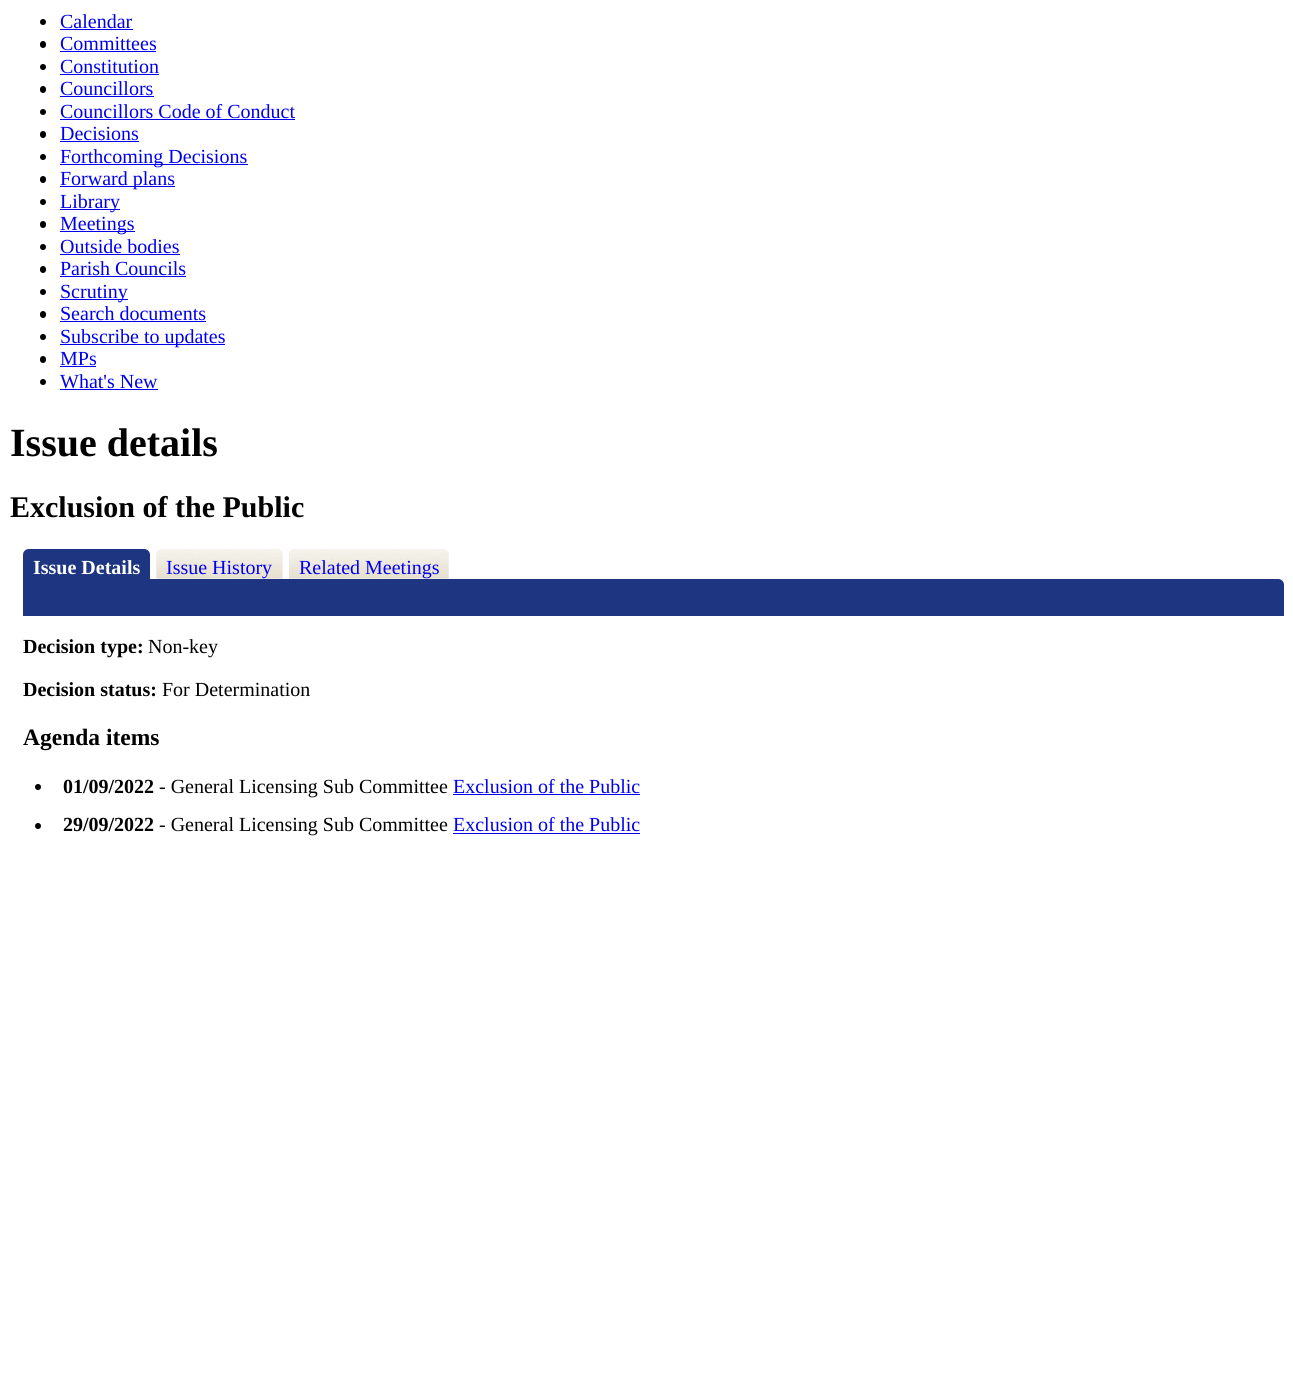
#include <cairo/cairo.h>
#include <math.h>
#include <stddef.h>


static void rounded_rect(cairo_t *cr, double x, double y, double w, double h, double r) {
  cairo_new_sub_path(cr);
  cairo_arc(cr, x + w - r, y + h - r, r, 0, M_PI / 2);
  cairo_arc(cr, x + r, y + h - r, r, M_PI / 2, M_PI);
  cairo_arc(cr, x + r, y + r, r, M_PI, 1.5 * M_PI);
  cairo_arc(cr, x + w - r, y + r, r, 1.5 * M_PI, 2 * M_PI);
  cairo_close_path(cr);
}

static void draw_image(cairo_t *cr, const char *path, double x, double y, double w, double h) {
  cairo_surface_t *image = cairo_image_surface_create_from_png(path);
  cairo_save(cr);
  cairo_set_source_surface(cr, image, x, y);
  cairo_rectangle(cr, x, y, w, h);
  cairo_fill(cr);
  cairo_restore(cr);
  cairo_surface_destroy(image);
}

static void draw(cairo_t *cr) {
  cairo_set_source_rgb(cr, 1, 1, 1);
  cairo_paint(cr);
  cairo_set_source_rgb(cr, 0, 0, 0);
  cairo_arc(cr, 43, 22, 3, 0, 2 * M_PI);
  cairo_fill(cr);
  cairo_set_source_rgb(cr, 0, 0, 238 / 255.0);
  cairo_rectangle(cr, 60, 29, 73, 1);
  cairo_fill(cr);
  cairo_set_source_rgb(cr, 0, 0, 0);
  rounded_rect(cr, 40, 41, 6, 7, 3);
  cairo_fill(cr);
  cairo_set_source_rgb(cr, 0, 0, 238 / 255.0);
  cairo_rectangle(cr, 60, 51, 96, 1);
  cairo_fill(cr);
  cairo_set_source_rgb(cr, 0, 0, 0);
  cairo_arc(cr, 43, 67, 3, 0, 2 * M_PI);
  cairo_fill(cr);
  cairo_set_source_rgb(cr, 0, 0, 238 / 255.0);
  cairo_rectangle(cr, 60, 74, 99, 1);
  cairo_fill(cr);
  cairo_set_source_rgb(cr, 0, 0, 0);
  rounded_rect(cr, 40, 86, 6, 7, 3);
  cairo_fill(cr);
  cairo_set_source_rgb(cr, 0, 0, 238 / 255.0);
  cairo_rectangle(cr, 60, 96, 94, 1);
  cairo_fill(cr);
  cairo_set_source_rgb(cr, 0, 0, 0);
  cairo_arc(cr, 43, 112, 3, 0, 2 * M_PI);
  cairo_fill(cr);
  cairo_set_source_rgb(cr, 0, 0, 238 / 255.0);
  cairo_rectangle(cr, 60, 119, 235, 1);
  cairo_fill(cr);
  cairo_set_source_rgb(cr, 0, 0, 0);
  rounded_rect(cr, 40, 131, 6, 7, 3);
  cairo_fill(cr);
  cairo_set_source_rgb(cr, 0, 0, 238 / 255.0);
  cairo_rectangle(cr, 60, 141, 79, 1);
  cairo_fill(cr);
  cairo_set_source_rgb(cr, 0, 0, 0);
  cairo_arc(cr, 43, 157, 3, 0, 2 * M_PI);
  cairo_fill(cr);
  cairo_set_source_rgb(cr, 0, 0, 238 / 255.0);
  cairo_rectangle(cr, 60, 164, 188, 1);
  cairo_fill(cr);
  cairo_set_source_rgb(cr, 0, 0, 0);
  rounded_rect(cr, 40, 176, 6, 7, 3);
  cairo_fill(cr);
  cairo_set_source_rgb(cr, 0, 0, 238 / 255.0);
  cairo_rectangle(cr, 60, 186, 115, 1);
  cairo_fill(cr);
  cairo_set_source_rgb(cr, 0, 0, 0);
  cairo_arc(cr, 43, 202, 3, 0, 2 * M_PI);
  cairo_fill(cr);
  cairo_set_source_rgb(cr, 0, 0, 238 / 255.0);
  cairo_rectangle(cr, 60, 209, 60, 1);
  cairo_fill(cr);
  cairo_set_source_rgb(cr, 0, 0, 0);
  rounded_rect(cr, 40, 221, 6, 7, 3);
  cairo_fill(cr);
  cairo_set_source_rgb(cr, 0, 0, 238 / 255.0);
  cairo_rectangle(cr, 60, 231, 75, 1);
  cairo_fill(cr);
  cairo_set_source_rgb(cr, 0, 0, 0);
  cairo_arc(cr, 43, 247, 3, 0, 2 * M_PI);
  cairo_fill(cr);
  cairo_set_source_rgb(cr, 0, 0, 238 / 255.0);
  cairo_rectangle(cr, 60, 254, 120, 1);
  cairo_fill(cr);
  cairo_set_source_rgb(cr, 0, 0, 0);
  rounded_rect(cr, 40, 266, 6, 7, 3);
  cairo_fill(cr);
  cairo_set_source_rgb(cr, 0, 0, 238 / 255.0);
  cairo_rectangle(cr, 60, 276, 126, 1);
  cairo_fill(cr);
  cairo_set_source_rgb(cr, 0, 0, 0);
  cairo_arc(cr, 43, 292, 3, 0, 2 * M_PI);
  cairo_fill(cr);
  cairo_set_source_rgb(cr, 0, 0, 238 / 255.0);
  cairo_rectangle(cr, 60, 299, 68, 1);
  cairo_fill(cr);
  cairo_set_source_rgb(cr, 0, 0, 0);
  rounded_rect(cr, 40, 311, 6, 7, 3);
  cairo_fill(cr);
  cairo_set_source_rgb(cr, 0, 0, 238 / 255.0);
  cairo_rectangle(cr, 60, 321, 146, 1);
  cairo_fill(cr);
  cairo_set_source_rgb(cr, 0, 0, 0);
  cairo_arc(cr, 43, 337, 3, 0, 2 * M_PI);
  cairo_fill(cr);
  cairo_set_source_rgb(cr, 0, 0, 238 / 255.0);
  cairo_rectangle(cr, 60, 344, 165, 1);
  cairo_fill(cr);
  cairo_set_source_rgb(cr, 0, 0, 0);
  rounded_rect(cr, 40, 356, 6, 7, 3);
  cairo_fill(cr);
  cairo_set_source_rgb(cr, 0, 0, 238 / 255.0);
  cairo_rectangle(cr, 60, 366, 36, 1);
  cairo_fill(cr);
  cairo_set_source_rgb(cr, 0, 0, 0);
  cairo_arc(cr, 43, 382, 3, 0, 2 * M_PI);
  cairo_fill(cr);
  cairo_set_source_rgb(cr, 0, 0, 238 / 255.0);
  cairo_rectangle(cr, 60, 389, 98, 1);
  cairo_fill(cr);
  cairo_set_source_rgb(cr, 30 / 255.0, 53 / 255.0, 129 / 255.0);
  cairo_new_path(cr);
  cairo_move_to(cr, 29, 549);
  cairo_line_to(cr, 144, 549);
  cairo_curve_to(cr, 147.5, 549, 150, 551.5, 150, 555);
  cairo_line_to(cr, 150, 579);
  cairo_line_to(cr, 23, 579);
  cairo_line_to(cr, 23, 555);
  cairo_curve_to(cr, 23, 551.5, 25.5, 549, 29, 549);
  cairo_close_path(cr);
  cairo_fill(cr);
  cairo_set_source_rgb(cr, 243 / 255.0, 243 / 255.0, 243 / 255.0);
  cairo_new_path(cr);
  cairo_move_to(cr, 162, 549);
  cairo_line_to(cr, 277, 549);
  cairo_curve_to(cr, 280.5, 549, 283, 551.5, 283, 555);
  cairo_line_to(cr, 283, 579);
  cairo_line_to(cr, 156, 579);
  cairo_line_to(cr, 156, 555);
  cairo_curve_to(cr, 156, 551.5, 158.5, 549, 162, 549);
  cairo_close_path(cr);
  cairo_fill(cr);
  draw_image(cr, "images/1.png", 156, 549, 127, 30);
  cairo_new_path(cr);
  cairo_move_to(cr, 295, 549);
  cairo_line_to(cr, 443, 549);
  cairo_curve_to(cr, 446.5, 549, 449, 551.5, 449, 555);
  cairo_line_to(cr, 449, 579);
  cairo_line_to(cr, 289, 579);
  cairo_line_to(cr, 289, 555);
  cairo_curve_to(cr, 289, 551.5, 291.5, 549, 295, 549);
  cairo_close_path(cr);
  cairo_fill(cr);
  draw_image(cr, "images/2.png", 289, 549, 160, 30);
  cairo_set_source_rgb(cr, 30 / 255.0, 53 / 255.0, 129 / 255.0);
  cairo_new_path(cr);
  cairo_move_to(cr, 23, 579);
  cairo_line_to(cr, 1278, 579);
  cairo_curve_to(cr, 1281.5, 579, 1284, 581.5, 1284, 585);
  cairo_line_to(cr, 1284, 616);
  cairo_line_to(cr, 23, 616);
  cairo_close_path(cr);
  cairo_fill(cr);
  cairo_set_source_rgb(cr, 0, 0, 0);
  cairo_arc(cr, 38, 787, 3, 0, 2 * M_PI);
  cairo_fill(cr);
  cairo_set_source_rgb(cr, 0, 0, 238 / 255.0);
  cairo_rectangle(cr, 453, 794, 187, 1);
  cairo_fill(cr);
  cairo_set_source_rgb(cr, 0, 0, 0);
  cairo_arc(cr, 38, 826, 3, 0, 2 * M_PI);
  cairo_fill(cr);
  cairo_set_source_rgb(cr, 0, 0, 238 / 255.0);
  cairo_rectangle(cr, 453, 833, 187, 1);
  cairo_fill(cr);
  cairo_select_font_face(cr, "Liberation Serif", CAIRO_FONT_SLANT_NORMAL, CAIRO_FONT_WEIGHT_NORMAL);
  cairo_set_font_size(cr, 20);
  cairo_move_to(cr, 60, 28);
  cairo_show_text(cr, "Calendar");
  cairo_move_to(cr, 60, 50);
  cairo_show_text(cr, "Committees");
  cairo_move_to(cr, 60, 73);
  cairo_show_text(cr, "Constitution");
  cairo_move_to(cr, 60, 95);
  cairo_show_text(cr, "Councillors");
  cairo_move_to(cr, 60, 118);
  cairo_show_text(cr, "Councillors Code of Conduct");
  cairo_move_to(cr, 60, 140);
  cairo_show_text(cr, "Decisions");
  cairo_move_to(cr, 60, 163);
  cairo_show_text(cr, "Forthcoming Decisions");
  cairo_move_to(cr, 60, 185);
  cairo_show_text(cr, "Forward plans");
  cairo_move_to(cr, 60, 208);
  cairo_show_text(cr, "Library");
  cairo_move_to(cr, 60, 230);
  cairo_show_text(cr, "Meetings");
  cairo_move_to(cr, 60, 253);
  cairo_show_text(cr, "Outside bodies");
  cairo_move_to(cr, 60, 275);
  cairo_show_text(cr, "Parish Councils");
  cairo_move_to(cr, 60, 298);
  cairo_show_text(cr, "Scrutiny");
  cairo_move_to(cr, 60, 320);
  cairo_show_text(cr, "Search documents");
  cairo_move_to(cr, 60, 343);
  cairo_show_text(cr, "Subscribe to updates");
  cairo_move_to(cr, 60, 365);
  cairo_show_text(cr, "MPs");
  cairo_move_to(cr, 60, 388);
  cairo_show_text(cr, "What's New");
  cairo_select_font_face(cr, "Liberation Serif", CAIRO_FONT_SLANT_NORMAL, CAIRO_FONT_WEIGHT_BOLD);
  cairo_set_font_size(cr, 40);
  cairo_set_source_rgb(cr, 0, 0, 0);
  cairo_move_to(cr, 10, 456);
  cairo_show_text(cr, "Issue details");
  cairo_set_font_size(cr, 30);
  cairo_move_to(cr, 10, 517);
  cairo_show_text(cr, "Exclusion of the Public");
  cairo_set_font_size(cr, 20);
  cairo_set_source_rgb(cr, 1, 1, 1);
  cairo_move_to(cr, 33, 574);
  cairo_show_text(cr, "Issue Details");
  cairo_select_font_face(cr, "Liberation Serif", CAIRO_FONT_SLANT_NORMAL, CAIRO_FONT_WEIGHT_NORMAL);
  cairo_set_source_rgb(cr, 0, 0, 238 / 255.0);
  cairo_move_to(cr, 166, 574);
  cairo_show_text(cr, "Issue History");
  cairo_move_to(cr, 299, 574);
  cairo_show_text(cr, "Related Meetings");
  cairo_select_font_face(cr, "Liberation Serif", CAIRO_FONT_SLANT_NORMAL, CAIRO_FONT_WEIGHT_BOLD);
  cairo_set_source_rgb(cr, 0, 0, 0);
  cairo_move_to(cr, 23, 653);
  cairo_show_text(cr, "Decision type:");
  cairo_select_font_face(cr, "Liberation Serif", CAIRO_FONT_SLANT_NORMAL, CAIRO_FONT_WEIGHT_NORMAL);
  cairo_move_to(cr, 148, 653);
  cairo_show_text(cr, "Non-key");
  cairo_select_font_face(cr, "Liberation Serif", CAIRO_FONT_SLANT_NORMAL, CAIRO_FONT_WEIGHT_BOLD);
  cairo_move_to(cr, 23, 696);
  cairo_show_text(cr, "Decision status:");
  cairo_select_font_face(cr, "Liberation Serif", CAIRO_FONT_SLANT_NORMAL, CAIRO_FONT_WEIGHT_NORMAL);
  cairo_move_to(cr, 162, 696);
  cairo_show_text(cr, "For Determination");
  cairo_select_font_face(cr, "Liberation Serif", CAIRO_FONT_SLANT_NORMAL, CAIRO_FONT_WEIGHT_BOLD);
  cairo_set_font_size(cr, 23.5);
  cairo_move_to(cr, 23, 745);
  cairo_show_text(cr, "Agenda items");
  cairo_set_font_size(cr, 20);
  cairo_move_to(cr, 63, 793);
  cairo_show_text(cr, "01/09/2022");
  cairo_select_font_face(cr, "Liberation Serif", CAIRO_FONT_SLANT_NORMAL, CAIRO_FONT_WEIGHT_NORMAL);
  cairo_move_to(cr, 159, 793);
  cairo_show_text(cr, "- General Licensing Sub Committee");
  cairo_set_source_rgb(cr, 0, 0, 238 / 255.0);
  cairo_move_to(cr, 453, 793);
  cairo_show_text(cr, "Exclusion of the Public");
  cairo_select_font_face(cr, "Liberation Serif", CAIRO_FONT_SLANT_NORMAL, CAIRO_FONT_WEIGHT_BOLD);
  cairo_set_source_rgb(cr, 0, 0, 0);
  cairo_move_to(cr, 63, 831);
  cairo_show_text(cr, "29/09/2022");
  cairo_select_font_face(cr, "Liberation Serif", CAIRO_FONT_SLANT_NORMAL, CAIRO_FONT_WEIGHT_NORMAL);
  cairo_move_to(cr, 159, 831);
  cairo_show_text(cr, "- General Licensing Sub Committee");
  cairo_set_source_rgb(cr, 0, 0, 238 / 255.0);
  cairo_move_to(cr, 453, 831);
  cairo_show_text(cr, "Exclusion of the Public");
}

int main(void) {
  cairo_surface_t *surface = cairo_image_surface_create(CAIRO_FORMAT_RGB24, 1293, 1383);
  cairo_t *cr = cairo_create(surface);
  cairo_font_options_t *options = cairo_font_options_create();
  cairo_font_options_set_hint_metrics(options, CAIRO_HINT_METRICS_OFF);
  cairo_font_options_set_hint_style(options, CAIRO_HINT_STYLE_NONE);
  cairo_set_font_options(cr, options);
  cairo_set_miter_limit(cr, 4);
  draw(cr);
  cairo_surface_write_to_png(surface, "out.png");
  cairo_font_options_destroy(options);
  cairo_destroy(cr);
  cairo_surface_destroy(surface);
  return 0;
}
